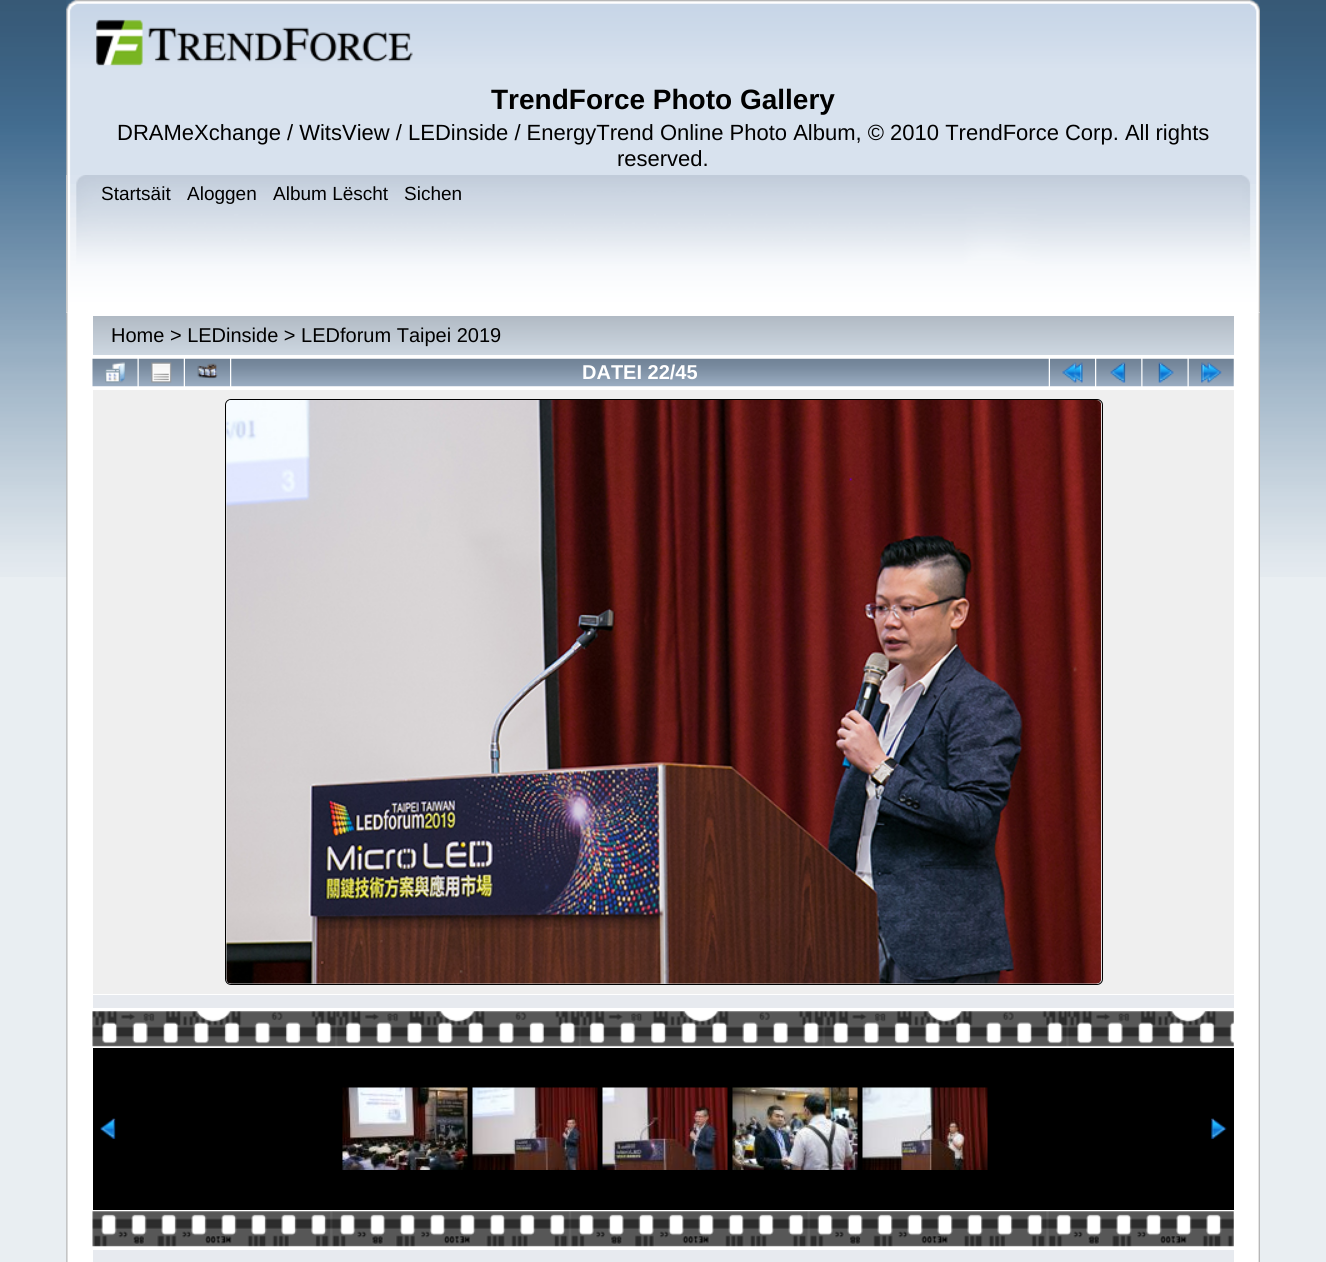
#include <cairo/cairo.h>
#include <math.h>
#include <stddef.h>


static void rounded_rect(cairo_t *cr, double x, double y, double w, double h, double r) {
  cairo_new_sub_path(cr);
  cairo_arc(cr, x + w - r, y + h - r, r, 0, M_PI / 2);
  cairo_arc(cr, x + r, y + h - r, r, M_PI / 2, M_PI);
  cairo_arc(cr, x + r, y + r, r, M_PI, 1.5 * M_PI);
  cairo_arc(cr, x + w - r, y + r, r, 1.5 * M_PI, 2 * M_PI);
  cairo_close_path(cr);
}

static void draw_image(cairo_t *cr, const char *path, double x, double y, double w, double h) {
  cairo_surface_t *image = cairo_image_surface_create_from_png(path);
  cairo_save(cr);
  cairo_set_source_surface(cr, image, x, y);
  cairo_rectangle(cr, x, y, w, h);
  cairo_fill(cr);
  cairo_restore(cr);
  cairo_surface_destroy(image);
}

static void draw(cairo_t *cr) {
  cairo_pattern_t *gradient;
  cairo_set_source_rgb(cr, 233 / 255.0, 238 / 255.0, 242 / 255.0);
  cairo_paint(cr);
  draw_image(cr, "images/1.png", 0, 0, 1326, 577);
  draw_image(cr, "images/2.png", 66, 0, 1184, 175);
  draw_image(cr, "images/3.png", 1250, 0, 10, 175);
  draw_image(cr, "images/4.png", 96, 19, 317, 47);
  cairo_set_source_rgb(cr, 254 / 255.0, 254 / 255.0, 254 / 255.0);
  cairo_rectangle(cr, 66, 175, 1194, 138);
  cairo_fill(cr);
  draw_image(cr, "images/5.png", 66, 175, 1194, 138);
  draw_image(cr, "images/6.png", 1242, 175, 18, 138);
  draw_image(cr, "images/7.png", 66, 312, 1194, 950);
  draw_image(cr, "images/8.png", 1258, 312, 2, 950);
  gradient = cairo_pattern_create_linear(663, 316, 663, 355);
  cairo_pattern_add_color_stop_rgba(gradient, 0, 177 / 255.0, 186 / 255.0, 196 / 255.0, 1);
  cairo_pattern_add_color_stop_rgba(gradient, 1, 205 / 255.0, 215 / 255.0, 225 / 255.0, 1);
  cairo_set_source(cr, gradient);
  cairo_pattern_destroy(gradient);
  cairo_rectangle(cr, 93, 316, 1141, 39);
  cairo_fill(cr);
  draw_image(cr, "images/9.png", 92, 358, 46, 29);
  draw_image(cr, "images/10.png", 105, 362, 20, 21);
  draw_image(cr, "images/11.png", 138, 358, 46, 29);
  draw_image(cr, "images/12.png", 151, 362, 21, 21);
  draw_image(cr, "images/13.png", 185, 358, 45, 29);
  draw_image(cr, "images/14.png", 197, 363, 21, 16);
  draw_image(cr, "images/15.png", 231, 358, 818, 29);
  draw_image(cr, "images/13.png", 1050, 358, 45, 29);
  draw_image(cr, "images/16.png", 1062, 362, 21, 21);
  draw_image(cr, "images/17.png", 1096, 358, 46, 29);
  draw_image(cr, "images/18.png", 1110, 362, 16, 21);
  draw_image(cr, "images/9.png", 1142, 358, 46, 29);
  draw_image(cr, "images/19.png", 1158, 362, 16, 21);
  draw_image(cr, "images/11.png", 1188, 358, 46, 29);
  draw_image(cr, "images/20.png", 1201, 362, 21, 21);
  cairo_set_source_rgb(cr, 239 / 255.0, 239 / 255.0, 239 / 255.0);
  cairo_rectangle(cr, 93, 390, 1141, 604);
  cairo_fill(cr);
  rounded_rect(cr, 225.5, 399.5, 877, 585, 5.5);
  cairo_set_source_rgb(cr, 0, 0, 0);
  cairo_set_line_width(cr, 1);
  cairo_stroke(cr);
  draw_image(cr, "images/21.png", 226, 400, 876, 584);
  cairo_set_source_rgb(cr, 231 / 255.0, 234 / 255.0, 239 / 255.0);
  cairo_rectangle(cr, 93, 995, 1141, 13);
  cairo_fill(cr);
  draw_image(cr, "images/22.png", 92, 1011, 1142, 36);
  cairo_set_source_rgb(cr, 0, 0, 0);
  cairo_rectangle(cr, 93, 1048, 1141, 162);
  cairo_fill(cr);
  draw_image(cr, "images/23.png", 100, 1118, 16, 21);
  draw_image(cr, "images/24.png", 342, 1087, 126, 83);
  draw_image(cr, "images/25.png", 472, 1087, 126, 83);
  draw_image(cr, "images/26.png", 602, 1087, 126, 83);
  draw_image(cr, "images/27.png", 732, 1087, 126, 83);
  draw_image(cr, "images/28.png", 862, 1087, 126, 83);
  draw_image(cr, "images/29.png", 1211, 1118, 16, 21);
  draw_image(cr, "images/30.png", 92, 1211, 1142, 36);
  cairo_set_source_rgb(cr, 231 / 255.0, 234 / 255.0, 239 / 255.0);
  cairo_rectangle(cr, 93, 1250, 1141, 12);
  cairo_fill(cr);
  cairo_select_font_face(cr, "Liberation Sans", CAIRO_FONT_SLANT_NORMAL, CAIRO_FONT_WEIGHT_BOLD);
  cairo_set_font_size(cr, 28);
  cairo_set_source_rgb(cr, 0, 0, 0);
  cairo_move_to(cr, 491, 109);
  cairo_show_text(cr, "TrendForce Photo Gallery");
  cairo_select_font_face(cr, "Liberation Sans", CAIRO_FONT_SLANT_NORMAL, CAIRO_FONT_WEIGHT_NORMAL);
  cairo_set_font_size(cr, 22);
  cairo_move_to(cr, 117, 140);
  cairo_show_text(cr, "DRAMeXchange / WitsView / LEDinside / EnergyTrend Online Photo Album, © 2010 TrendForce Corp. All rights");
  cairo_move_to(cr, 617, 166);
  cairo_show_text(cr, "reserved.");
  cairo_set_font_size(cr, 19);
  cairo_move_to(cr, 101, 200);
  cairo_show_text(cr, "Startsäit");
  cairo_move_to(cr, 187, 200);
  cairo_show_text(cr, "Aloggen");
  cairo_move_to(cr, 273, 200);
  cairo_show_text(cr, "Album Lëscht");
  cairo_move_to(cr, 404, 200);
  cairo_show_text(cr, "Sichen");
  cairo_set_font_size(cr, 20);
  cairo_move_to(cr, 111, 342);
  cairo_show_text(cr, "Home > LEDinside > LEDforum Taipei 2019");
  cairo_select_font_face(cr, "Liberation Sans", CAIRO_FONT_SLANT_NORMAL, CAIRO_FONT_WEIGHT_BOLD);
  cairo_set_source_rgb(cr, 1, 1, 1);
  cairo_move_to(cr, 582, 379);
  cairo_show_text(cr, "DATEI 22/45");
}

int main(void) {
  cairo_surface_t *surface = cairo_image_surface_create(CAIRO_FORMAT_RGB24, 1326, 1262);
  cairo_t *cr = cairo_create(surface);
  cairo_font_options_t *options = cairo_font_options_create();
  cairo_font_options_set_hint_metrics(options, CAIRO_HINT_METRICS_OFF);
  cairo_font_options_set_hint_style(options, CAIRO_HINT_STYLE_NONE);
  cairo_set_font_options(cr, options);
  cairo_set_miter_limit(cr, 4);
  draw(cr);
  cairo_surface_write_to_png(surface, "out.png");
  cairo_font_options_destroy(options);
  cairo_destroy(cr);
  cairo_surface_destroy(surface);
  return 0;
}
